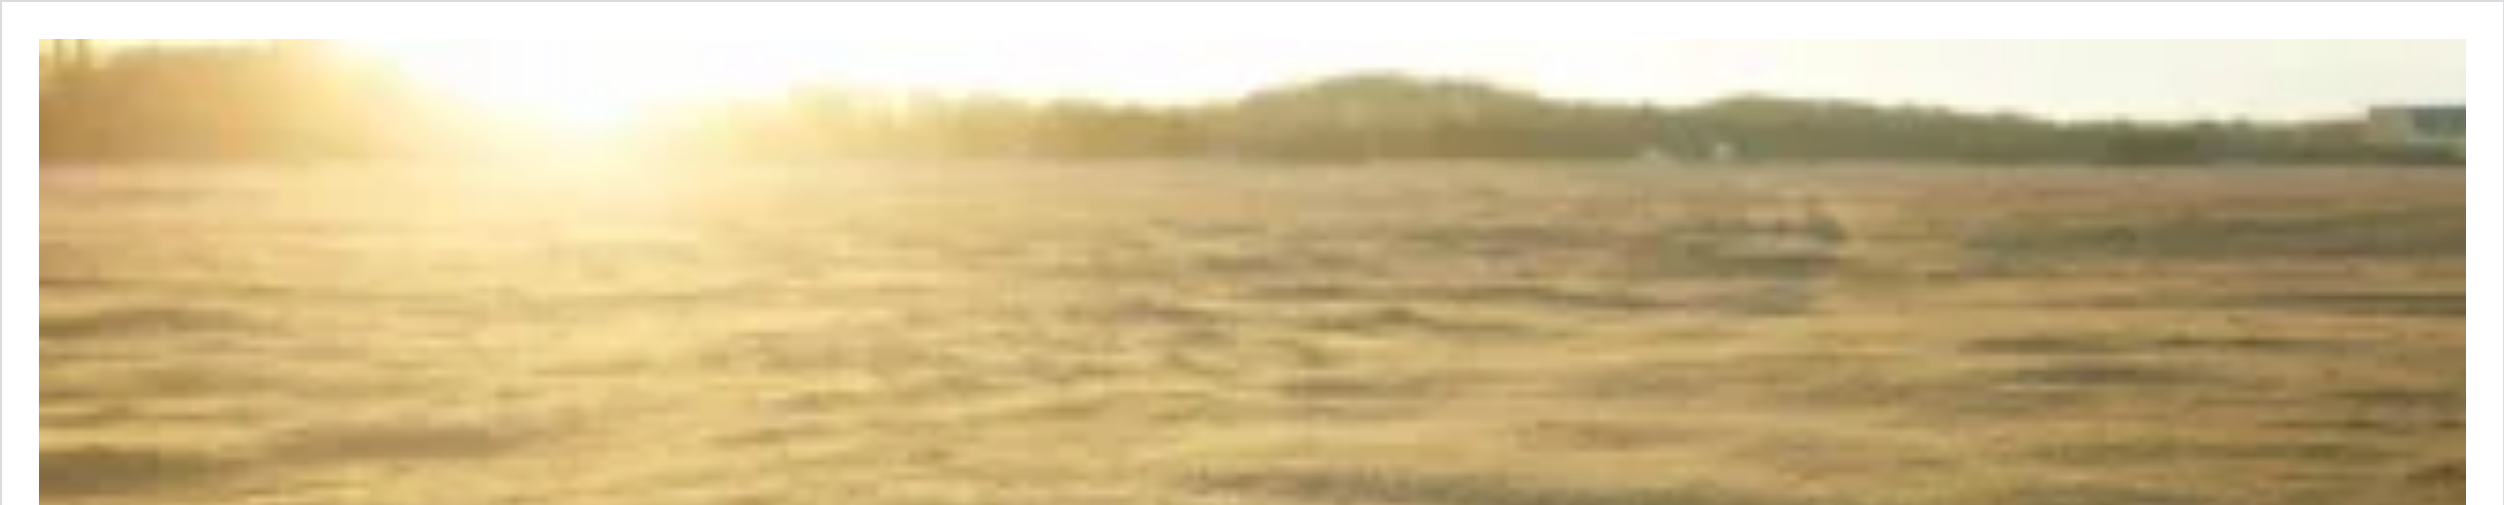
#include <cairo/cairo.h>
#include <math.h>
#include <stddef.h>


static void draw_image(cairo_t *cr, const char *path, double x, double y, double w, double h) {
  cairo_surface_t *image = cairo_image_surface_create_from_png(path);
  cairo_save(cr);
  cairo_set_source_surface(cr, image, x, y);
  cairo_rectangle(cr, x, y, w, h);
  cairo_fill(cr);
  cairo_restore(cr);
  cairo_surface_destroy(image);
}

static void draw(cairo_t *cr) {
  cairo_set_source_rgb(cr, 1, 1, 1);
  cairo_paint(cr);
  cairo_rectangle(cr, 1, 1, 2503, 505);
  cairo_set_source_rgb(cr, 220 / 255.0, 220 / 255.0, 222 / 255.0);
  cairo_stroke(cr);
  draw_image(cr, "images/1.png", 39, 39, 2427, 466);
}

int main(void) {
  cairo_surface_t *surface = cairo_image_surface_create(CAIRO_FORMAT_RGB24, 2504, 505);
  cairo_t *cr = cairo_create(surface);
  cairo_font_options_t *options = cairo_font_options_create();
  cairo_font_options_set_hint_metrics(options, CAIRO_HINT_METRICS_OFF);
  cairo_font_options_set_hint_style(options, CAIRO_HINT_STYLE_NONE);
  cairo_set_font_options(cr, options);
  cairo_set_miter_limit(cr, 4);
  draw(cr);
  cairo_surface_write_to_png(surface, "out.png");
  cairo_font_options_destroy(options);
  cairo_destroy(cr);
  cairo_surface_destroy(surface);
  return 0;
}
